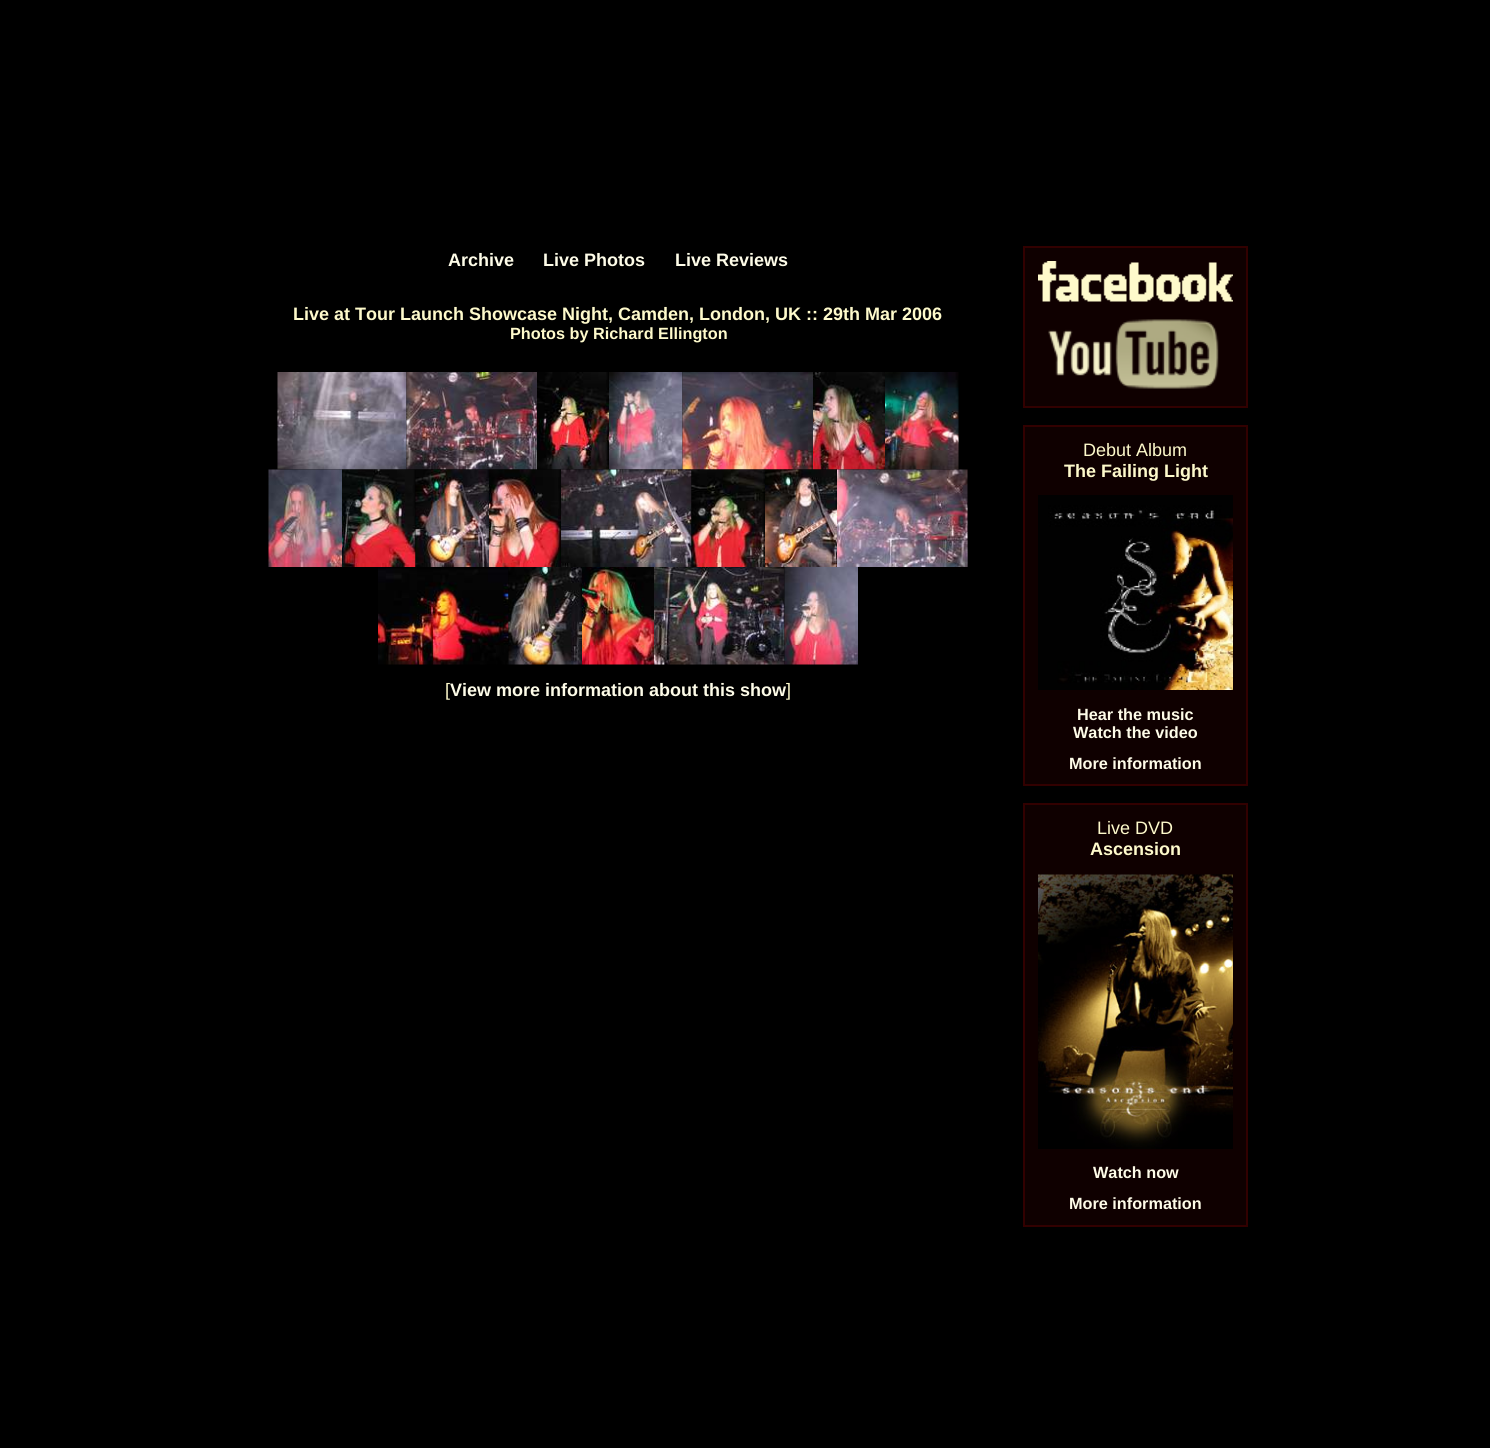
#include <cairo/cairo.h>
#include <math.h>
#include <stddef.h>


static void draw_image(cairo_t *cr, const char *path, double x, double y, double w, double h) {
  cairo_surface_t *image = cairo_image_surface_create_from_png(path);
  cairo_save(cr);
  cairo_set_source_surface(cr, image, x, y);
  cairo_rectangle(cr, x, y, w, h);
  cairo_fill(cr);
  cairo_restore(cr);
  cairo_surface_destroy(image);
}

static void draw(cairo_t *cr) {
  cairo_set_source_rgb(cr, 0, 0, 0);
  cairo_paint(cr);
  draw_image(cr, "images/1.png", 277, 372, 130, 98);
  draw_image(cr, "images/2.png", 406, 372, 131, 98);
  draw_image(cr, "images/3.png", 537, 372, 72, 98);
  draw_image(cr, "images/4.png", 609, 372, 74, 98);
  draw_image(cr, "images/5.png", 682, 372, 131, 98);
  draw_image(cr, "images/6.png", 813, 372, 72, 98);
  draw_image(cr, "images/7.png", 885, 372, 74, 98);
  draw_image(cr, "images/8.png", 268, 469, 74, 98);
  draw_image(cr, "images/9.png", 342, 469, 74, 98);
  draw_image(cr, "images/10.png", 415, 469, 74, 98);
  draw_image(cr, "images/11.png", 489, 469, 72, 98);
  draw_image(cr, "images/12.png", 561, 469, 131, 98);
  draw_image(cr, "images/13.png", 691, 469, 74, 98);
  draw_image(cr, "images/14.png", 765, 469, 72, 98);
  draw_image(cr, "images/15.png", 837, 469, 131, 98);
  draw_image(cr, "images/16.png", 378, 567, 131, 98);
  draw_image(cr, "images/17.png", 508, 567, 74, 98);
  draw_image(cr, "images/18.png", 582, 567, 72, 98);
  draw_image(cr, "images/19.png", 654, 567, 131, 98);
  draw_image(cr, "images/20.png", 784, 567, 74, 98);
  cairo_set_source_rgb(cr, 15 / 255.0, 0, 0);
  cairo_rectangle(cr, 1024, 247, 223, 160);
  cairo_fill_preserve(cr);
  cairo_set_source_rgb(cr, 50 / 255.0, 0, 0);
  cairo_stroke(cr);
  draw_image(cr, "images/21.png", 1038, 261, 195, 41);
  draw_image(cr, "images/22.png", 1048, 319, 171, 70);
  cairo_set_source_rgb(cr, 15 / 255.0, 0, 0);
  cairo_rectangle(cr, 1024, 426, 223, 359);
  cairo_fill_preserve(cr);
  cairo_set_source_rgb(cr, 50 / 255.0, 0, 0);
  cairo_stroke(cr);
  draw_image(cr, "images/23.png", 1038, 495, 195, 195);
  cairo_set_source_rgb(cr, 15 / 255.0, 0, 0);
  cairo_rectangle(cr, 1024, 804, 223, 422);
  cairo_fill_preserve(cr);
  cairo_set_source_rgb(cr, 50 / 255.0, 0, 0);
  cairo_stroke(cr);
  draw_image(cr, "images/24.png", 1038, 874, 195, 275);
  cairo_select_font_face(cr, "Liberation Sans", CAIRO_FONT_SLANT_NORMAL, CAIRO_FONT_WEIGHT_BOLD);
  cairo_set_font_size(cr, 18);
  cairo_set_source_rgb(cr, 254 / 255.0, 252 / 255.0, 232 / 255.0);
  cairo_move_to(cr, 448, 266);
  cairo_show_text(cr, "Archive");
  cairo_move_to(cr, 543, 266);
  cairo_show_text(cr, "Live Photos");
  cairo_move_to(cr, 675, 266);
  cairo_show_text(cr, "Live Reviews");
  cairo_set_source_rgb(cr, 254 / 255.0, 250 / 255.0, 203 / 255.0);
  cairo_move_to(cr, 293, 320);
  cairo_show_text(cr, "Live at Tour Launch Showcase Night, Camden, London, UK :: 29th Mar 2006");
  cairo_set_font_size(cr, 16.25);
  cairo_move_to(cr, 510, 339);
  cairo_show_text(cr, "Photos by Richard Ellington");
  cairo_select_font_face(cr, "Liberation Sans", CAIRO_FONT_SLANT_NORMAL, CAIRO_FONT_WEIGHT_NORMAL);
  cairo_set_font_size(cr, 18);
  cairo_move_to(cr, 445, 696);
  cairo_show_text(cr, "[");
  cairo_select_font_face(cr, "Liberation Sans", CAIRO_FONT_SLANT_NORMAL, CAIRO_FONT_WEIGHT_BOLD);
  cairo_set_source_rgb(cr, 254 / 255.0, 252 / 255.0, 232 / 255.0);
  cairo_move_to(cr, 450, 696);
  cairo_show_text(cr, "View more information about this show");
  cairo_select_font_face(cr, "Liberation Sans", CAIRO_FONT_SLANT_NORMAL, CAIRO_FONT_WEIGHT_NORMAL);
  cairo_set_source_rgb(cr, 254 / 255.0, 250 / 255.0, 203 / 255.0);
  cairo_move_to(cr, 786, 696);
  cairo_show_text(cr, "]");
  cairo_move_to(cr, 1083, 456);
  cairo_show_text(cr, "Debut Album");
  cairo_select_font_face(cr, "Liberation Sans", CAIRO_FONT_SLANT_NORMAL, CAIRO_FONT_WEIGHT_BOLD);
  cairo_move_to(cr, 1064, 477);
  cairo_show_text(cr, "The Failing Light");
  cairo_set_font_size(cr, 16.25);
  cairo_set_source_rgb(cr, 254 / 255.0, 252 / 255.0, 232 / 255.0);
  cairo_move_to(cr, 1077, 720);
  cairo_show_text(cr, "Hear the music");
  cairo_move_to(cr, 1073, 738);
  cairo_show_text(cr, "Watch the video");
  cairo_move_to(cr, 1069, 769);
  cairo_show_text(cr, "More information");
  cairo_select_font_face(cr, "Liberation Sans", CAIRO_FONT_SLANT_NORMAL, CAIRO_FONT_WEIGHT_NORMAL);
  cairo_set_font_size(cr, 18);
  cairo_set_source_rgb(cr, 254 / 255.0, 250 / 255.0, 203 / 255.0);
  cairo_move_to(cr, 1097, 834);
  cairo_show_text(cr, "Live DVD");
  cairo_select_font_face(cr, "Liberation Sans", CAIRO_FONT_SLANT_NORMAL, CAIRO_FONT_WEIGHT_BOLD);
  cairo_move_to(cr, 1090, 855);
  cairo_show_text(cr, "Ascension");
  cairo_set_font_size(cr, 16.25);
  cairo_set_source_rgb(cr, 254 / 255.0, 252 / 255.0, 232 / 255.0);
  cairo_move_to(cr, 1093, 1178);
  cairo_show_text(cr, "Watch now");
  cairo_move_to(cr, 1069, 1209);
  cairo_show_text(cr, "More information");
}

int main(void) {
  cairo_surface_t *surface = cairo_image_surface_create(CAIRO_FORMAT_RGB24, 1490, 1448);
  cairo_t *cr = cairo_create(surface);
  cairo_font_options_t *options = cairo_font_options_create();
  cairo_font_options_set_hint_metrics(options, CAIRO_HINT_METRICS_OFF);
  cairo_font_options_set_hint_style(options, CAIRO_HINT_STYLE_NONE);
  cairo_set_font_options(cr, options);
  cairo_set_miter_limit(cr, 4);
  draw(cr);
  cairo_surface_write_to_png(surface, "out.png");
  cairo_font_options_destroy(options);
  cairo_destroy(cr);
  cairo_surface_destroy(surface);
  return 0;
}
